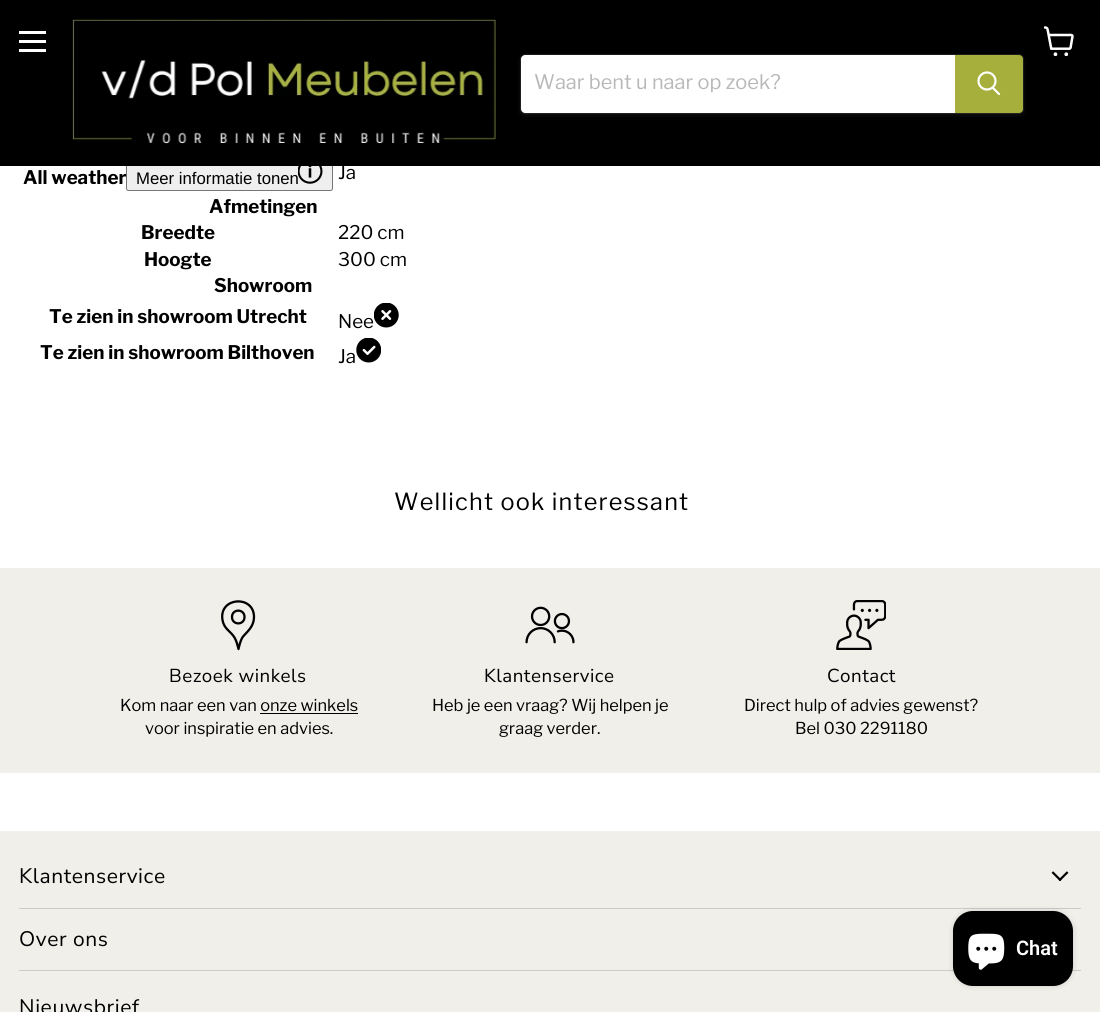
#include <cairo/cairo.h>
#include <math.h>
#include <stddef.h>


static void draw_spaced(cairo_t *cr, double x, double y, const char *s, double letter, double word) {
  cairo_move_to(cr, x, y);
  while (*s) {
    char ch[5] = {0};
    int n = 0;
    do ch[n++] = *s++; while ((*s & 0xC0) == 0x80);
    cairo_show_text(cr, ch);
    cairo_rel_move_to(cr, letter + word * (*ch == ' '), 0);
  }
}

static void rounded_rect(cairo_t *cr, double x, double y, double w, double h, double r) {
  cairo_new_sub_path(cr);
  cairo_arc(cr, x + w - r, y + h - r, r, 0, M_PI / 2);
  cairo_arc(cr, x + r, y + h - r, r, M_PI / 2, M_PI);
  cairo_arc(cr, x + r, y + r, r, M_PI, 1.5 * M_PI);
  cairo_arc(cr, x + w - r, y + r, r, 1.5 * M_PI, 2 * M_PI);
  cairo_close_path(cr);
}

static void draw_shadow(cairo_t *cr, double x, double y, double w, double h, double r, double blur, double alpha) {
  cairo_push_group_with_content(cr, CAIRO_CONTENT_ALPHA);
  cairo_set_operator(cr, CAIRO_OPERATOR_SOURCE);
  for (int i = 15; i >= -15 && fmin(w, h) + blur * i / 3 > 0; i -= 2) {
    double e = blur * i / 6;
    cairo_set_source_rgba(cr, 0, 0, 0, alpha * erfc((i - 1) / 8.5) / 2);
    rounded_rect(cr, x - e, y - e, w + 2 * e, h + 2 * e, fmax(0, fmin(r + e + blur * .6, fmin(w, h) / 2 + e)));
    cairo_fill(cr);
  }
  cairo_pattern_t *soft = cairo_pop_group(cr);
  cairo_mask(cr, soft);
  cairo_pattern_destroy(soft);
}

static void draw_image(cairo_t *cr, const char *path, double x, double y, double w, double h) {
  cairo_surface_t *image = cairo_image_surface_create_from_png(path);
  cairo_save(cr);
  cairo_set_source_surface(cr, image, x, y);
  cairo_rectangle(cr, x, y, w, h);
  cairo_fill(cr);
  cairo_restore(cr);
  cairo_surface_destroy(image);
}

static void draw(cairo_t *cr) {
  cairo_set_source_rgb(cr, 1, 1, 1);
  cairo_paint(cr);
  cairo_set_source_rgb(cr, 239 / 255.0, 239 / 255.0, 239 / 255.0);
  rounded_rect(cr, 126.5, 155.5, 206, 35, 2);
  cairo_fill_preserve(cr);
  cairo_set_source_rgb(cr, 118 / 255.0, 118 / 255.0, 118 / 255.0);
  cairo_set_line_width(cr, 1);
  cairo_stroke(cr);
  cairo_set_source_rgb(cr, 0, 0, 0);
  cairo_rectangle(cr, 0, 0, 1100, 166);
  cairo_fill(cr);
  cairo_set_source_rgb(cr, 1, 1, 1);
  cairo_rectangle(cr, 19, 31, 27, 3);
  cairo_fill(cr);
  cairo_rectangle(cr, 19, 40, 27, 3);
  cairo_fill(cr);
  cairo_rectangle(cr, 19, 49, 27, 3);
  cairo_fill(cr);
  draw_image(cr, "images/1.png", 1044, 26, 30, 30);
  draw_image(cr, "images/2.png", 72, 19, 424, 125);
  cairo_set_source_rgb(cr, 128 / 255.0, 128 / 255.0, 128 / 255.0);
  draw_shadow(cr, 520, 56, 504, 60, 5, 2, 0.11);
  rounded_rect(cr, 520.5, 54.5, 503, 59, 4.5);
  cairo_set_source_rgba(cr, 128 / 255.0, 128 / 255.0, 128 / 255.0, 0.2);
  cairo_stroke(cr);
  cairo_set_source_rgb(cr, 1, 1, 1);
  cairo_new_path(cr);
  cairo_move_to(cr, 525, 55);
  cairo_line_to(cr, 955, 55);
  cairo_line_to(cr, 955, 113);
  cairo_line_to(cr, 525, 113);
  cairo_curve_to(cr, 523, 113, 521, 111, 521, 109);
  cairo_line_to(cr, 521, 59);
  cairo_curve_to(cr, 521, 57, 523, 55, 525, 55);
  cairo_close_path(cr);
  cairo_fill(cr);
  cairo_set_source_rgb(cr, 166 / 255.0, 175 / 255.0, 60 / 255.0);
  cairo_new_path(cr);
  cairo_move_to(cr, 955.5, 55.5);
  cairo_line_to(cr, 1019, 55.5);
  cairo_curve_to(cr, 1021, 55.5, 1022.5, 57, 1022.5, 59);
  cairo_line_to(cr, 1022.5, 109);
  cairo_curve_to(cr, 1022.5, 111, 1021, 112.5, 1019, 112.5);
  cairo_line_to(cr, 955.5, 112.5);
  cairo_close_path(cr);
  cairo_fill_preserve(cr);
  cairo_stroke(cr);
  cairo_new_path(cr);
  cairo_move_to(cr, 999, 94);
  cairo_line_to(cr, 993, 88);
  cairo_set_source_rgb(cr, 1, 1, 1);
  cairo_set_line_width(cr, 2.2);
  cairo_set_line_cap(cr, CAIRO_LINE_CAP_ROUND);
  cairo_stroke(cr);
  cairo_arc(cr, 987, 81, 8.5, 0, 2 * M_PI);
  cairo_set_line_cap(cr, CAIRO_LINE_CAP_BUTT);
  cairo_stroke(cr);
  draw_image(cr, "images/3.png", 298, 166, 25, 18);
  draw_image(cr, "images/4.png", 374, 303, 25, 25);
  draw_image(cr, "images/5.png", 356, 338, 25, 25);
  cairo_set_source_rgb(cr, 241 / 255.0, 239 / 255.0, 234 / 255.0);
  cairo_rectangle(cr, 0, 568, 1100, 205);
  cairo_fill(cr);
  cairo_new_path(cr);
  cairo_move_to(cr, 254, 617);
  cairo_curve_to(cr, 254, 626, 248, 631, 243.5, 636);
  cairo_curve_to(cr, 240.5, 639, 238.5, 649, 238.5, 649);
  cairo_curve_to(cr, 237.5, 645, 236.5, 641, 234.5, 637.5);
  cairo_curve_to(cr, 230.5, 631, 224, 629, 222.5, 620);
  cairo_curve_to(cr, 218.5, 597, 254, 594.5, 254, 617);
  cairo_close_path(cr);
  cairo_move_to(cr, 232, 617);
  cairo_curve_to(cr, 232, 625.5, 244.5, 625.5, 244.5, 617);
  cairo_curve_to(cr, 244.5, 608.5, 232, 608.5, 232, 617);
  cairo_close_path(cr);
  cairo_set_source_rgb(cr, 0, 0, 0);
  cairo_set_line_width(cr, 2.3);
  cairo_set_line_cap(cr, CAIRO_LINE_CAP_ROUND);
  cairo_set_line_join(cr, CAIRO_LINE_JOIN_ROUND);
  cairo_stroke(cr);
  cairo_rectangle(cr, 260, 713, 98, 1);
  cairo_fill(cr);
  draw_image(cr, "images/6.png", 525, 606, 50, 38);
  draw_image(cr, "images/7.png", 836, 600, 50, 50);
  cairo_set_source_rgb(cr, 241 / 255.0, 239 / 255.0, 234 / 255.0);
  cairo_rectangle(cr, 0, 831, 1100, 181);
  cairo_fill(cr);
  cairo_set_source_rgb(cr, 205 / 255.0, 203 / 255.0, 199 / 255.0);
  cairo_rectangle(cr, 19, 908, 1062, 1);
  cairo_fill(cr);
  draw_image(cr, "images/8.png", 1051, 871, 18, 10);
  cairo_rectangle(cr, 19, 970, 1062, 1);
  cairo_fill(cr);
  cairo_set_source_rgb(cr, 0, 0, 0);
  draw_shadow(cr, 953, 911, 120, 75, 20, 3, 0.15);
  cairo_set_source_rgb(cr, 0, 0, 0);
  rounded_rect(cr, 953, 911, 120, 75, 20);
  cairo_fill(cr);
  draw_image(cr, "images/9.png", 968, 933, 37, 37);
  cairo_select_font_face(cr, "Libre Franklin", CAIRO_FONT_SLANT_NORMAL, CAIRO_FONT_WEIGHT_NORMAL);
  cairo_set_font_size(cr, 20);
  cairo_set_source_rgb(cr, 184 / 255.0, 184 / 255.0, 184 / 255.0);
  cairo_move_to(cr, 534, 89);
  cairo_show_text(cr, "Waar bent u naar op zoek?");
  cairo_select_font_face(cr, "Libre Franklin", CAIRO_FONT_SLANT_NORMAL, CAIRO_FONT_WEIGHT_BOLD);
  cairo_set_font_size(cr, 18.75);
  cairo_set_source_rgb(cr, 0, 0, 0);
  cairo_move_to(cr, 23, 184);
  cairo_show_text(cr, "All weather");
  cairo_select_font_face(cr, "Liberation Sans", CAIRO_FONT_SLANT_NORMAL, CAIRO_FONT_WEIGHT_NORMAL);
  cairo_set_font_size(cr, 16.75);
  cairo_move_to(cr, 136, 184);
  cairo_show_text(cr, "Meer informatie tonen");
  cairo_select_font_face(cr, "Libre Franklin", CAIRO_FONT_SLANT_NORMAL, CAIRO_FONT_WEIGHT_NORMAL);
  cairo_set_font_size(cr, 18.75);
  cairo_move_to(cr, 338, 179);
  cairo_show_text(cr, "Ja");
  cairo_select_font_face(cr, "Libre Franklin", CAIRO_FONT_SLANT_NORMAL, CAIRO_FONT_WEIGHT_BOLD);
  cairo_move_to(cr, 209, 213);
  cairo_show_text(cr, "Afmetingen");
  cairo_move_to(cr, 141, 239);
  cairo_show_text(cr, "Breedte");
  cairo_select_font_face(cr, "Libre Franklin", CAIRO_FONT_SLANT_NORMAL, CAIRO_FONT_WEIGHT_NORMAL);
  cairo_move_to(cr, 338, 239);
  cairo_show_text(cr, "220 cm");
  cairo_select_font_face(cr, "Libre Franklin", CAIRO_FONT_SLANT_NORMAL, CAIRO_FONT_WEIGHT_BOLD);
  cairo_move_to(cr, 144, 266);
  cairo_show_text(cr, "Hoogte");
  cairo_select_font_face(cr, "Libre Franklin", CAIRO_FONT_SLANT_NORMAL, CAIRO_FONT_WEIGHT_NORMAL);
  cairo_move_to(cr, 338, 266);
  cairo_show_text(cr, "300 cm");
  cairo_select_font_face(cr, "Libre Franklin", CAIRO_FONT_SLANT_NORMAL, CAIRO_FONT_WEIGHT_BOLD);
  cairo_move_to(cr, 214, 292);
  cairo_show_text(cr, "Showroom");
  cairo_move_to(cr, 49, 323);
  cairo_show_text(cr, "Te zien in showroom Utrecht");
  cairo_select_font_face(cr, "Libre Franklin", CAIRO_FONT_SLANT_NORMAL, CAIRO_FONT_WEIGHT_NORMAL);
  cairo_move_to(cr, 338, 328);
  cairo_show_text(cr, "Nee");
  cairo_select_font_face(cr, "Libre Franklin", CAIRO_FONT_SLANT_NORMAL, CAIRO_FONT_WEIGHT_BOLD);
  cairo_move_to(cr, 40, 359);
  cairo_show_text(cr, "Te zien in showroom Bilthoven");
  cairo_select_font_face(cr, "Libre Franklin", CAIRO_FONT_SLANT_NORMAL, CAIRO_FONT_WEIGHT_NORMAL);
  cairo_move_to(cr, 338, 363);
  cairo_show_text(cr, "Ja");
  cairo_set_font_size(cr, 23.5);
  draw_spaced(cr, 394, 510, "Wellicht ook interessant", 1.2, 0);
  cairo_select_font_face(cr, "Nunito Sans", CAIRO_FONT_SLANT_NORMAL, CAIRO_FONT_WEIGHT_NORMAL);
  cairo_set_font_size(cr, 18.75);
  draw_spaced(cr, 169, 682, "Bezoek winkels", 0.5, 0);
  cairo_select_font_face(cr, "Libre Franklin", CAIRO_FONT_SLANT_NORMAL, CAIRO_FONT_WEIGHT_NORMAL);
  cairo_set_font_size(cr, 16.4);
  cairo_move_to(cr, 120, 711);
  cairo_show_text(cr, "Kom naar een van onze winkels");
  cairo_move_to(cr, 145, 734);
  cairo_show_text(cr, "voor inspiratie en advies.");
  cairo_select_font_face(cr, "Nunito Sans", CAIRO_FONT_SLANT_NORMAL, CAIRO_FONT_WEIGHT_NORMAL);
  cairo_set_font_size(cr, 18.75);
  draw_spaced(cr, 484, 682, "Klantenservice", 0.5, 0);
  cairo_select_font_face(cr, "Libre Franklin", CAIRO_FONT_SLANT_NORMAL, CAIRO_FONT_WEIGHT_NORMAL);
  cairo_set_font_size(cr, 16.4);
  cairo_move_to(cr, 432, 711);
  cairo_show_text(cr, "Heb je een vraag? Wij helpen je");
  cairo_move_to(cr, 499, 734);
  cairo_show_text(cr, "graag verder.");
  cairo_select_font_face(cr, "Nunito Sans", CAIRO_FONT_SLANT_NORMAL, CAIRO_FONT_WEIGHT_NORMAL);
  cairo_set_font_size(cr, 18.75);
  draw_spaced(cr, 827, 682, "Contact", 0.5, 0);
  cairo_select_font_face(cr, "Libre Franklin", CAIRO_FONT_SLANT_NORMAL, CAIRO_FONT_WEIGHT_NORMAL);
  cairo_set_font_size(cr, 16.4);
  cairo_move_to(cr, 744, 711);
  cairo_show_text(cr, "Direct hulp of advies gewenst?");
  cairo_move_to(cr, 795, 734);
  cairo_show_text(cr, "Bel 030 2291180");
  cairo_select_font_face(cr, "Nunito Sans", CAIRO_FONT_SLANT_NORMAL, CAIRO_FONT_WEIGHT_NORMAL);
  cairo_set_font_size(cr, 21);
  draw_spaced(cr, 19, 883, "Klantenservice", 0.6, 0);
  draw_spaced(cr, 19, 946, "Over ons", 0.6, 0);
  draw_spaced(cr, 19, 1014, "Nieuwsbrief", 0.6, 0);
  cairo_select_font_face(cr, "Roboto SemiBold", CAIRO_FONT_SLANT_NORMAL, CAIRO_FONT_WEIGHT_NORMAL);
  cairo_set_font_size(cr, 20);
  cairo_set_source_rgb(cr, 1, 1, 1);
  cairo_move_to(cr, 1016, 955);
  cairo_show_text(cr, "Chat");
}

int main(void) {
  cairo_surface_t *surface = cairo_image_surface_create(CAIRO_FORMAT_RGB24, 1100, 1012);
  cairo_t *cr = cairo_create(surface);
  cairo_font_options_t *options = cairo_font_options_create();
  cairo_font_options_set_hint_metrics(options, CAIRO_HINT_METRICS_OFF);
  cairo_font_options_set_hint_style(options, CAIRO_HINT_STYLE_NONE);
  cairo_set_font_options(cr, options);
  cairo_set_miter_limit(cr, 4);
  draw(cr);
  cairo_surface_write_to_png(surface, "out.png");
  cairo_font_options_destroy(options);
  cairo_destroy(cr);
  cairo_surface_destroy(surface);
  return 0;
}
